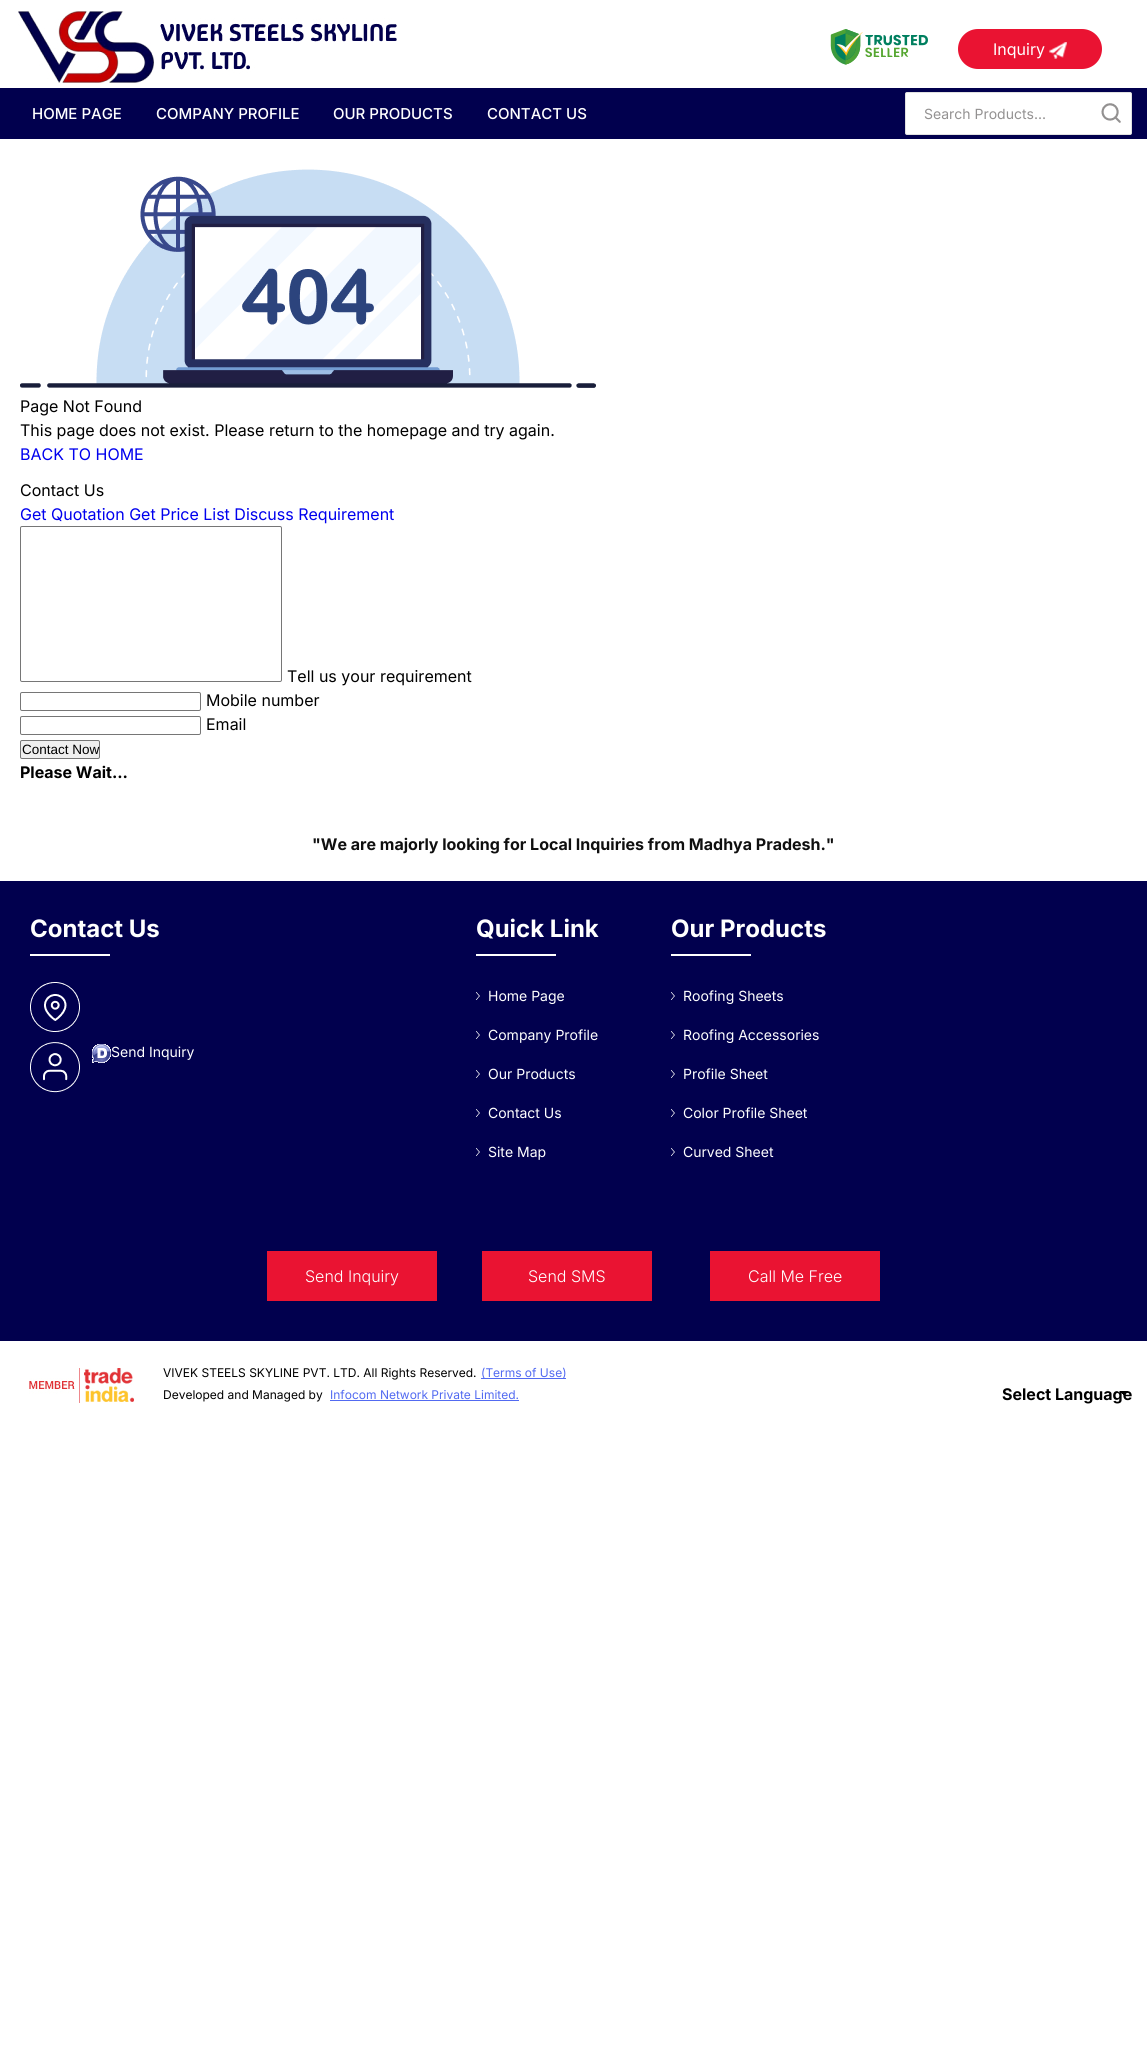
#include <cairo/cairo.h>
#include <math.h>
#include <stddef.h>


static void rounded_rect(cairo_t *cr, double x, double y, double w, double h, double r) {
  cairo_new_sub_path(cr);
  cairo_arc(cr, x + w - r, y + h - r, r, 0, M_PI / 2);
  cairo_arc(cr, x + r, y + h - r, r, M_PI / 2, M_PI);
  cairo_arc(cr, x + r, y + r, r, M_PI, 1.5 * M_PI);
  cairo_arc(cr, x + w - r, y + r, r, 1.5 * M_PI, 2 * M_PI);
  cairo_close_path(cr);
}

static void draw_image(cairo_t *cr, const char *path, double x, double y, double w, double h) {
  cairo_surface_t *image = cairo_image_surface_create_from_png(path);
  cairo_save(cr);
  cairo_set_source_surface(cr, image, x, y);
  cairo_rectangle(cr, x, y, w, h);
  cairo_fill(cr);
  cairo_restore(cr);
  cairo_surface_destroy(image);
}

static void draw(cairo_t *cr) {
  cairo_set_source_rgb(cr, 1, 1, 1);
  cairo_paint(cr);
  draw_image(cr, "images/1.png", 18, 11, 379, 72);
  draw_image(cr, "images/2.png", 830, 29, 98, 36);
  cairo_set_source_rgb(cr, 234 / 255.0, 19 / 255.0, 50 / 255.0);
  rounded_rect(cr, 958, 29, 144, 40, 20);
  cairo_fill(cr);
  draw_image(cr, "images/3.png", 1049, 42, 18, 17);
  cairo_set_source_rgb(cr, 1 / 255.0, 0, 78 / 255.0);
  cairo_rectangle(cr, 0, 88, 1147, 51);
  cairo_fill(cr);
  cairo_set_source_rgb(cr, 1, 1, 1);
  rounded_rect(cr, 905.5, 92.5, 226, 42, 1.5);
  cairo_fill_preserve(cr);
  cairo_set_source_rgb(cr, 225 / 255.0, 225 / 255.0, 225 / 255.0);
  cairo_set_line_width(cr, 1);
  cairo_stroke(cr);
  draw_image(cr, "images/4.png", 1101, 103, 20, 20);
  draw_image(cr, "images/5.png", 20, 169, 576, 219);
  rounded_rect(cr, 20.5, 526.5, 261, 155, 1.5);
  cairo_set_source_rgb(cr, 118 / 255.0, 118 / 255.0, 118 / 255.0);
  cairo_stroke(cr);
  rounded_rect(cr, 20.5, 692.5, 180, 18, 1.5);
  cairo_stroke(cr);
  rounded_rect(cr, 20.5, 716.5, 180, 18, 1.5);
  cairo_stroke(cr);
  cairo_set_source_rgb(cr, 239 / 255.0, 239 / 255.0, 239 / 255.0);
  rounded_rect(cr, 20.5, 740.5, 79, 18, 1.5);
  cairo_fill_preserve(cr);
  cairo_set_source_rgb(cr, 118 / 255.0, 118 / 255.0, 118 / 255.0);
  cairo_stroke(cr);
  cairo_set_source_rgb(cr, 1 / 255.0, 0, 78 / 255.0);
  cairo_rectangle(cr, 0, 881, 1147, 460);
  cairo_fill(cr);
  cairo_set_source_rgb(cr, 1, 1, 1);
  cairo_rectangle(cr, 30, 954, 80, 2);
  cairo_fill(cr);
  draw_image(cr, "images/6.png", 30, 982, 50, 50);
  draw_image(cr, "images/7.png", 30, 1042, 50, 51);
  draw_image(cr, "images/8.png", 92, 1044, 19, 19);
  cairo_rectangle(cr, 476, 954, 80, 2);
  cairo_fill(cr);
  draw_image(cr, "images/9.png", 476, 992, 4, 8);
  draw_image(cr, "images/9.png", 476, 1031, 4, 8);
  draw_image(cr, "images/9.png", 476, 1070, 4, 8);
  draw_image(cr, "images/9.png", 476, 1109, 4, 8);
  draw_image(cr, "images/9.png", 476, 1148, 4, 8);
  cairo_rectangle(cr, 671, 954, 80, 2);
  cairo_fill(cr);
  draw_image(cr, "images/9.png", 671, 992, 4, 8);
  draw_image(cr, "images/9.png", 671, 1031, 4, 8);
  draw_image(cr, "images/9.png", 671, 1070, 4, 8);
  draw_image(cr, "images/9.png", 671, 1109, 4, 8);
  draw_image(cr, "images/9.png", 671, 1148, 4, 8);
  cairo_set_source_rgb(cr, 234 / 255.0, 19 / 255.0, 50 / 255.0);
  cairo_rectangle(cr, 267, 1251, 170, 50);
  cairo_fill(cr);
  cairo_rectangle(cr, 482, 1251, 170, 50);
  cairo_fill(cr);
  cairo_rectangle(cr, 710, 1251, 170, 50);
  cairo_fill(cr);
  draw_image(cr, "images/10.png", 29, 1368, 105, 35);
  cairo_set_source_rgb(cr, 82 / 255.0, 106 / 255.0, 241 / 255.0);
  cairo_rectangle(cr, 481, 1378, 85, 1);
  cairo_fill(cr);
  cairo_rectangle(cr, 330, 1400, 189, 1);
  cairo_fill(cr);
  draw_image(cr, "images/11.png", 1120, 1391, 8, 4);
  cairo_select_font_face(cr, "Inter", CAIRO_FONT_SLANT_NORMAL, CAIRO_FONT_WEIGHT_NORMAL);
  cairo_set_font_size(cr, 16);
  cairo_set_source_rgb(cr, 1, 1, 1);
  cairo_move_to(cr, 993, 55);
  cairo_show_text(cr, "Inquiry");
  cairo_select_font_face(cr, "Inter Medium", CAIRO_FONT_SLANT_NORMAL, CAIRO_FONT_WEIGHT_NORMAL);
  cairo_set_font_size(cr, 15);
  cairo_move_to(cr, 32, 119);
  cairo_show_text(cr, "HOME PAGE");
  cairo_move_to(cr, 156, 119);
  cairo_show_text(cr, "COMPANY PROFILE");
  cairo_move_to(cr, 333, 119);
  cairo_show_text(cr, "OUR PRODUCTS");
  cairo_move_to(cr, 487, 119);
  cairo_show_text(cr, "CONTACT US");
  cairo_select_font_face(cr, "Inter", CAIRO_FONT_SLANT_NORMAL, CAIRO_FONT_WEIGHT_NORMAL);
  cairo_set_font_size(cr, 14);
  cairo_set_source_rgb(cr, 147 / 255.0, 145 / 255.0, 145 / 255.0);
  cairo_move_to(cr, 924, 119);
  cairo_show_text(cr, "Search Products...");
  cairo_set_font_size(cr, 16);
  cairo_set_source_rgb(cr, 0, 0, 0);
  cairo_move_to(cr, 20, 412);
  cairo_show_text(cr, "Page Not Found");
  cairo_move_to(cr, 20, 436);
  cairo_show_text(cr, "This page does not exist. Please return to the homepage and try again.");
  cairo_set_source_rgb(cr, 0, 0, 238 / 255.0);
  cairo_move_to(cr, 20, 460);
  cairo_show_text(cr, "BACK TO HOME");
  cairo_set_source_rgb(cr, 0, 0, 0);
  cairo_move_to(cr, 20, 496);
  cairo_show_text(cr, "Contact Us");
  cairo_set_source_rgb(cr, 0, 0, 238 / 255.0);
  cairo_move_to(cr, 20, 520);
  cairo_show_text(cr, "Get Quotation Get Price List Discuss Requirement");
  cairo_set_source_rgb(cr, 0, 0, 0);
  cairo_move_to(cr, 287, 682);
  cairo_show_text(cr, "Tell us your requirement");
  cairo_move_to(cr, 206, 706);
  cairo_show_text(cr, "Mobile number");
  cairo_move_to(cr, 206, 730);
  cairo_show_text(cr, "Email");
  cairo_select_font_face(cr, "Liberation Sans", CAIRO_FONT_SLANT_NORMAL, CAIRO_FONT_WEIGHT_NORMAL);
  cairo_set_font_size(cr, 13.5);
  cairo_move_to(cr, 22, 754);
  cairo_show_text(cr, "Contact Now");
  cairo_select_font_face(cr, "Inter", CAIRO_FONT_SLANT_NORMAL, CAIRO_FONT_WEIGHT_BOLD);
  cairo_set_font_size(cr, 16);
  cairo_move_to(cr, 20, 778);
  cairo_show_text(cr, "Please Wait...");
  cairo_set_source_rgb(cr, 15 / 255.0, 15 / 255.0, 15 / 255.0);
  cairo_move_to(cr, 312, 850);
  cairo_show_text(cr, "\"We are majorly looking for Local Inquiries from Madhya Pradesh.\"");
  cairo_set_font_size(cr, 24);
  cairo_set_source_rgb(cr, 1, 1, 1);
  cairo_move_to(cr, 30, 937);
  cairo_show_text(cr, "Contact Us");
  cairo_select_font_face(cr, "Inter", CAIRO_FONT_SLANT_NORMAL, CAIRO_FONT_WEIGHT_NORMAL);
  cairo_set_font_size(cr, 14);
  cairo_move_to(cr, 111, 1057);
  cairo_show_text(cr, "Send Inquiry");
  cairo_select_font_face(cr, "Inter", CAIRO_FONT_SLANT_NORMAL, CAIRO_FONT_WEIGHT_BOLD);
  cairo_set_font_size(cr, 24);
  cairo_move_to(cr, 476, 937);
  cairo_show_text(cr, "Quick Link");
  cairo_select_font_face(cr, "Inter", CAIRO_FONT_SLANT_NORMAL, CAIRO_FONT_WEIGHT_NORMAL);
  cairo_set_font_size(cr, 14);
  cairo_move_to(cr, 488, 1001);
  cairo_show_text(cr, "Home Page");
  cairo_move_to(cr, 488, 1040);
  cairo_show_text(cr, "Company Profile");
  cairo_move_to(cr, 488, 1079);
  cairo_show_text(cr, "Our Products");
  cairo_move_to(cr, 488, 1118);
  cairo_show_text(cr, "Contact Us");
  cairo_move_to(cr, 488, 1157);
  cairo_show_text(cr, "Site Map");
  cairo_select_font_face(cr, "Inter", CAIRO_FONT_SLANT_NORMAL, CAIRO_FONT_WEIGHT_BOLD);
  cairo_set_font_size(cr, 24);
  cairo_move_to(cr, 671, 937);
  cairo_show_text(cr, "Our Products");
  cairo_select_font_face(cr, "Inter", CAIRO_FONT_SLANT_NORMAL, CAIRO_FONT_WEIGHT_NORMAL);
  cairo_set_font_size(cr, 14);
  cairo_move_to(cr, 683, 1001);
  cairo_show_text(cr, "Roofing Sheets");
  cairo_move_to(cr, 683, 1040);
  cairo_show_text(cr, "Roofing Accessories");
  cairo_move_to(cr, 683, 1079);
  cairo_show_text(cr, "Profile Sheet");
  cairo_move_to(cr, 683, 1118);
  cairo_show_text(cr, "Color Profile Sheet");
  cairo_move_to(cr, 683, 1157);
  cairo_show_text(cr, "Curved Sheet");
  cairo_select_font_face(cr, "Inter Light", CAIRO_FONT_SLANT_NORMAL, CAIRO_FONT_WEIGHT_NORMAL);
  cairo_set_font_size(cr, 16);
  cairo_move_to(cr, 305, 1282);
  cairo_show_text(cr, "Send Inquiry");
  cairo_move_to(cr, 528, 1282);
  cairo_show_text(cr, "Send SMS");
  cairo_move_to(cr, 748, 1282);
  cairo_show_text(cr, "Call Me Free");
  cairo_select_font_face(cr, "Inter", CAIRO_FONT_SLANT_NORMAL, CAIRO_FONT_WEIGHT_NORMAL);
  cairo_set_font_size(cr, 12);
  cairo_set_source_rgb(cr, 0, 0, 0);
  cairo_move_to(cr, 163, 1377);
  cairo_show_text(cr, "VIVEK STEELS SKYLINE PVT. LTD. All Rights Reserved.");
  cairo_set_source_rgb(cr, 82 / 255.0, 106 / 255.0, 241 / 255.0);
  cairo_move_to(cr, 481, 1377);
  cairo_show_text(cr, "(Terms of Use)");
  cairo_set_source_rgb(cr, 0, 0, 0);
  cairo_move_to(cr, 163, 1399);
  cairo_show_text(cr, "Developed and Managed by");
  cairo_set_source_rgb(cr, 82 / 255.0, 106 / 255.0, 241 / 255.0);
  cairo_move_to(cr, 330, 1399);
  cairo_show_text(cr, "Infocom Network Private Limited.");
  cairo_select_font_face(cr, "Inter", CAIRO_FONT_SLANT_NORMAL, CAIRO_FONT_WEIGHT_BOLD);
  cairo_set_font_size(cr, 16);
  cairo_set_source_rgb(cr, 0, 0, 0);
  cairo_move_to(cr, 1002, 1400);
  cairo_show_text(cr, "Select Language");
}

int main(void) {
  cairo_surface_t *surface = cairo_image_surface_create(CAIRO_FORMAT_RGB24, 1147, 2067);
  cairo_t *cr = cairo_create(surface);
  cairo_font_options_t *options = cairo_font_options_create();
  cairo_font_options_set_hint_metrics(options, CAIRO_HINT_METRICS_OFF);
  cairo_font_options_set_hint_style(options, CAIRO_HINT_STYLE_NONE);
  cairo_set_font_options(cr, options);
  cairo_set_miter_limit(cr, 4);
  draw(cr);
  cairo_surface_write_to_png(surface, "out.png");
  cairo_font_options_destroy(options);
  cairo_destroy(cr);
  cairo_surface_destroy(surface);
  return 0;
}
